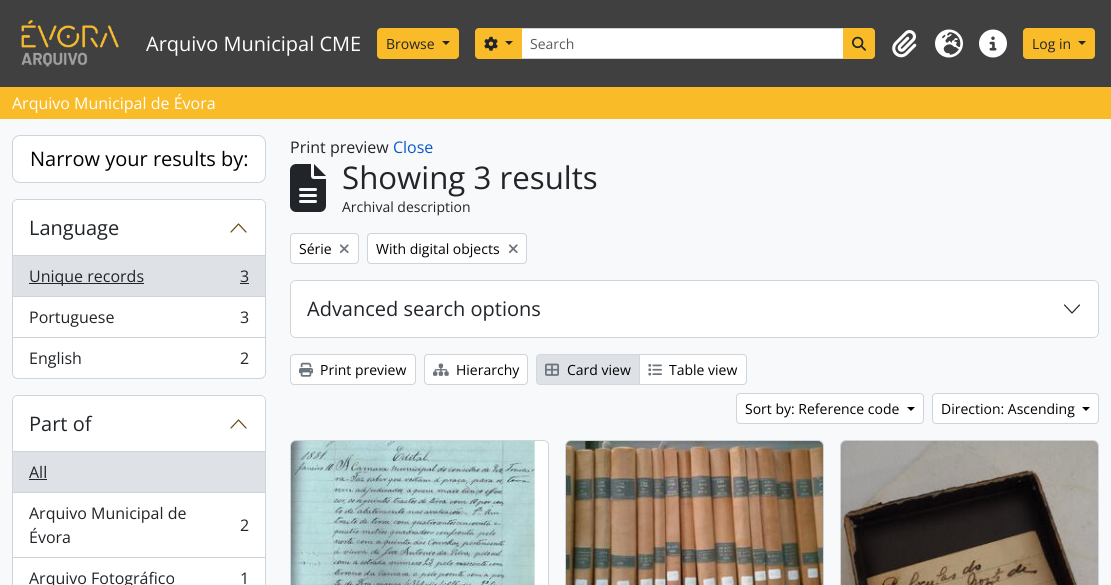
#include <cairo/cairo.h>
#include <math.h>
#include <stddef.h>


static void rounded_rect(cairo_t *cr, double x, double y, double w, double h, double r) {
  cairo_new_sub_path(cr);
  cairo_arc(cr, x + w - r, y + h - r, r, 0, M_PI / 2);
  cairo_arc(cr, x + r, y + h - r, r, M_PI / 2, M_PI);
  cairo_arc(cr, x + r, y + r, r, M_PI, 1.5 * M_PI);
  cairo_arc(cr, x + w - r, y + r, r, 1.5 * M_PI, 2 * M_PI);
  cairo_close_path(cr);
}

static void draw_image(cairo_t *cr, const char *path, double x, double y, double w, double h) {
  cairo_surface_t *image = cairo_image_surface_create_from_png(path);
  cairo_save(cr);
  cairo_set_source_surface(cr, image, x, y);
  cairo_rectangle(cr, x, y, w, h);
  cairo_fill(cr);
  cairo_restore(cr);
  cairo_surface_destroy(image);
}

static void draw(cairo_t *cr) {
  cairo_set_source_rgb(cr, 248 / 255.0, 249 / 255.0, 250 / 255.0);
  cairo_paint(cr);
  cairo_set_source_rgb(cr, 64 / 255.0, 64 / 255.0, 65 / 255.0);
  cairo_rectangle(cr, 0, 0, 1111, 87);
  cairo_fill(cr);
  draw_image(cr, "images/1.png", 21, 20, 98, 47);
  cairo_set_source_rgb(cr, 250 / 255.0, 187 / 255.0, 40 / 255.0);
  rounded_rect(cr, 377.5, 28.5, 81, 30, 3.5);
  cairo_fill_preserve(cr);
  cairo_set_line_width(cr, 1);
  cairo_stroke(cr);
  cairo_set_source_rgb(cr, 33 / 255.0, 37 / 255.0, 41 / 255.0);
  cairo_new_path(cr);
  cairo_move_to(cr, 442, 41);
  cairo_line_to(cr, 450, 41);
  cairo_line_to(cr, 446, 45);
  cairo_close_path(cr);
  cairo_fill(cr);
  cairo_set_source_rgb(cr, 1, 1, 1);
  cairo_rectangle(cr, 521.5, 28.5, 322, 30);
  cairo_fill_preserve(cr);
  cairo_set_source_rgb(cr, 206 / 255.0, 212 / 255.0, 218 / 255.0);
  cairo_stroke(cr);
  cairo_set_source_rgb(cr, 250 / 255.0, 187 / 255.0, 40 / 255.0);
  cairo_new_path(cr);
  cairo_move_to(cr, 479, 28.5);
  cairo_line_to(cr, 521.5, 28.5);
  cairo_line_to(cr, 521.5, 58.5);
  cairo_line_to(cr, 479, 58.5);
  cairo_curve_to(cr, 477, 58.5, 475.5, 57, 475.5, 55);
  cairo_line_to(cr, 475.5, 32);
  cairo_curve_to(cr, 475.5, 30, 477, 28.5, 479, 28.5);
  cairo_close_path(cr);
  cairo_fill_preserve(cr);
  cairo_stroke(cr);
  draw_image(cr, "images/2.png", 484, 36, 14, 15);
  cairo_set_source_rgb(cr, 33 / 255.0, 37 / 255.0, 41 / 255.0);
  cairo_new_path(cr);
  cairo_move_to(cr, 505, 41);
  cairo_line_to(cr, 513, 41);
  cairo_line_to(cr, 509, 45);
  cairo_close_path(cr);
  cairo_fill(cr);
  cairo_set_source_rgb(cr, 250 / 255.0, 187 / 255.0, 40 / 255.0);
  cairo_new_path(cr);
  cairo_move_to(cr, 843.5, 28.5);
  cairo_line_to(cr, 871, 28.5);
  cairo_curve_to(cr, 873, 28.5, 874.5, 30, 874.5, 32);
  cairo_line_to(cr, 874.5, 55);
  cairo_curve_to(cr, 874.5, 57, 873, 58.5, 871, 58.5);
  cairo_line_to(cr, 843.5, 58.5);
  cairo_close_path(cr);
  cairo_fill_preserve(cr);
  cairo_stroke(cr);
  draw_image(cr, "images/3.png", 852, 36, 14, 15);
  draw_image(cr, "images/4.png", 892, 30, 25, 28);
  draw_image(cr, "images/5.png", 935, 29, 28, 29);
  draw_image(cr, "images/6.png", 979, 29, 28, 29);
  rounded_rect(cr, 1023.5, 28.5, 71, 30, 3.5);
  cairo_fill_preserve(cr);
  cairo_stroke(cr);
  cairo_set_source_rgb(cr, 33 / 255.0, 37 / 255.0, 41 / 255.0);
  cairo_new_path(cr);
  cairo_move_to(cr, 1078, 41);
  cairo_line_to(cr, 1086, 41);
  cairo_line_to(cr, 1082, 45);
  cairo_close_path(cr);
  cairo_fill(cr);
  cairo_set_source_rgb(cr, 250 / 255.0, 187 / 255.0, 40 / 255.0);
  cairo_rectangle(cr, 0, 87, 1111, 32);
  cairo_fill(cr);
  cairo_set_source_rgb(cr, 1, 1, 1);
  rounded_rect(cr, 12.5, 135.5, 253, 47, 7.5);
  cairo_fill_preserve(cr);
  cairo_set_source_rgb(cr, 206 / 255.0, 212 / 255.0, 218 / 255.0);
  cairo_stroke(cr);
  cairo_set_source_rgb(cr, 1, 1, 1);
  rounded_rect(cr, 12.5, 199.5, 253, 179, 5.5);
  cairo_fill_preserve(cr);
  cairo_set_source_rgb(cr, 206 / 255.0, 212 / 255.0, 218 / 255.0);
  cairo_stroke(cr);
  cairo_set_source_rgb(cr, 1, 1, 1);
  cairo_new_path(cr);
  cairo_move_to(cr, 18, 200);
  cairo_line_to(cr, 260, 200);
  cairo_curve_to(cr, 263, 200, 265, 202, 265, 205);
  cairo_line_to(cr, 265, 256);
  cairo_line_to(cr, 13, 256);
  cairo_line_to(cr, 13, 205);
  cairo_curve_to(cr, 13, 202, 15, 200, 18, 200);
  cairo_close_path(cr);
  cairo_fill(cr);
  cairo_set_source_rgb(cr, 206 / 255.0, 212 / 255.0, 218 / 255.0);
  cairo_rectangle(cr, 13, 255, 252, 1);
  cairo_fill(cr);
  cairo_new_path(cr);
  cairo_move_to(cr, 246, 232);
  cairo_line_to(cr, 238.5, 224);
  cairo_line_to(cr, 231, 232);
  cairo_set_source_rgb(cr, 100 / 255.0, 75 / 255.0, 16 / 255.0);
  cairo_set_line_width(cr, 1.2);
  cairo_set_line_cap(cr, CAIRO_LINE_CAP_ROUND);
  cairo_set_line_join(cr, CAIRO_LINE_JOIN_ROUND);
  cairo_stroke(cr);
  cairo_set_source_rgb(cr, 222 / 255.0, 226 / 255.0, 230 / 255.0);
  cairo_rectangle(cr, 13, 256, 252, 40);
  cairo_fill(cr);
  cairo_set_source_rgb(cr, 206 / 255.0, 212 / 255.0, 218 / 255.0);
  cairo_rectangle(cr, 13, 296, 252, 1);
  cairo_fill(cr);
  cairo_set_source_rgb(cr, 33 / 255.0, 37 / 255.0, 41 / 255.0);
  cairo_rectangle(cr, 29, 283, 115, 1);
  cairo_fill(cr);
  cairo_rectangle(cr, 240, 283, 9, 1);
  cairo_fill(cr);
  cairo_set_source_rgb(cr, 206 / 255.0, 212 / 255.0, 218 / 255.0);
  cairo_rectangle(cr, 13, 337, 252, 1);
  cairo_fill(cr);
  cairo_set_source_rgb(cr, 1, 1, 1);
  cairo_new_path(cr);
  cairo_move_to(cr, 13, 338);
  cairo_line_to(cr, 265, 338);
  cairo_line_to(cr, 265, 372);
  cairo_curve_to(cr, 265, 375.5, 262.5, 378, 259, 378);
  cairo_line_to(cr, 19, 378);
  cairo_curve_to(cr, 15.5, 378, 13, 375.5, 13, 372);
  cairo_close_path(cr);
  cairo_fill(cr);
  rounded_rect(cr, 12.5, 395.5, 253, 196, 5.5);
  cairo_fill_preserve(cr);
  cairo_set_source_rgb(cr, 206 / 255.0, 212 / 255.0, 218 / 255.0);
  cairo_set_line_width(cr, 1);
  cairo_set_line_cap(cr, CAIRO_LINE_CAP_BUTT);
  cairo_set_line_join(cr, CAIRO_LINE_JOIN_MITER);
  cairo_stroke(cr);
  cairo_set_source_rgb(cr, 1, 1, 1);
  cairo_new_path(cr);
  cairo_move_to(cr, 18, 396);
  cairo_line_to(cr, 260, 396);
  cairo_curve_to(cr, 263, 396, 265, 398, 265, 401);
  cairo_line_to(cr, 265, 452);
  cairo_line_to(cr, 13, 452);
  cairo_line_to(cr, 13, 401);
  cairo_curve_to(cr, 13, 398, 15, 396, 18, 396);
  cairo_close_path(cr);
  cairo_fill(cr);
  cairo_set_source_rgb(cr, 206 / 255.0, 212 / 255.0, 218 / 255.0);
  cairo_rectangle(cr, 13, 451, 252, 1);
  cairo_fill(cr);
  cairo_new_path(cr);
  cairo_move_to(cr, 246, 428);
  cairo_line_to(cr, 238.5, 420);
  cairo_line_to(cr, 231, 428);
  cairo_set_source_rgb(cr, 100 / 255.0, 75 / 255.0, 16 / 255.0);
  cairo_set_line_width(cr, 1.2);
  cairo_set_line_cap(cr, CAIRO_LINE_CAP_ROUND);
  cairo_set_line_join(cr, CAIRO_LINE_JOIN_ROUND);
  cairo_stroke(cr);
  cairo_set_source_rgb(cr, 222 / 255.0, 226 / 255.0, 230 / 255.0);
  cairo_rectangle(cr, 13, 452, 252, 40);
  cairo_fill(cr);
  cairo_set_source_rgb(cr, 206 / 255.0, 212 / 255.0, 218 / 255.0);
  cairo_rectangle(cr, 13, 492, 252, 1);
  cairo_fill(cr);
  cairo_set_source_rgb(cr, 33 / 255.0, 37 / 255.0, 41 / 255.0);
  cairo_rectangle(cr, 29, 479, 18, 1);
  cairo_fill(cr);
  cairo_set_source_rgb(cr, 206 / 255.0, 212 / 255.0, 218 / 255.0);
  cairo_rectangle(cr, 13, 557, 252, 1);
  cairo_fill(cr);
  draw_image(cr, "images/7.png", 290, 164, 36, 48);
  cairo_set_source_rgb(cr, 1, 1, 1);
  rounded_rect(cr, 290.5, 233.5, 68, 30, 3.5);
  cairo_fill_preserve(cr);
  cairo_set_source_rgb(cr, 206 / 255.0, 212 / 255.0, 218 / 255.0);
  cairo_set_line_width(cr, 1);
  cairo_set_line_cap(cr, CAIRO_LINE_CAP_BUTT);
  cairo_set_line_join(cr, CAIRO_LINE_JOIN_MITER);
  cairo_stroke(cr);
  draw_image(cr, "images/8.png", 339, 244, 10, 10);
  cairo_set_source_rgb(cr, 1, 1, 1);
  rounded_rect(cr, 367.5, 233.5, 159, 30, 3.5);
  cairo_fill_preserve(cr);
  cairo_set_source_rgb(cr, 206 / 255.0, 212 / 255.0, 218 / 255.0);
  cairo_stroke(cr);
  draw_image(cr, "images/8.png", 508, 244, 10, 10);
  rounded_rect(cr, 290.5, 280.5, 808, 57, 5.5);
  cairo_stroke(cr);
  cairo_set_source_rgb(cr, 1, 1, 1);
  rounded_rect(cr, 291, 281, 807, 56, 5);
  cairo_fill(cr);
  cairo_new_path(cr);
  cairo_move_to(cr, 1064.5, 305);
  cairo_line_to(cr, 1072, 313);
  cairo_line_to(cr, 1079.5, 305);
  cairo_set_source_rgb(cr, 33 / 255.0, 37 / 255.0, 41 / 255.0);
  cairo_set_line_width(cr, 1.2);
  cairo_set_line_cap(cr, CAIRO_LINE_CAP_ROUND);
  cairo_set_line_join(cr, CAIRO_LINE_JOIN_ROUND);
  cairo_stroke(cr);
  cairo_set_source_rgb(cr, 1, 1, 1);
  rounded_rect(cr, 290.5, 354.5, 125, 30, 3.5);
  cairo_fill_preserve(cr);
  cairo_set_source_rgb(cr, 206 / 255.0, 212 / 255.0, 218 / 255.0);
  cairo_set_line_width(cr, 1);
  cairo_set_line_cap(cr, CAIRO_LINE_CAP_BUTT);
  cairo_set_line_join(cr, CAIRO_LINE_JOIN_MITER);
  cairo_stroke(cr);
  draw_image(cr, "images/9.png", 299, 362, 14, 15);
  cairo_set_source_rgb(cr, 1, 1, 1);
  rounded_rect(cr, 424.5, 354.5, 103, 30, 3.5);
  cairo_fill_preserve(cr);
  cairo_set_source_rgb(cr, 206 / 255.0, 212 / 255.0, 218 / 255.0);
  cairo_stroke(cr);
  draw_image(cr, "images/10.png", 433, 363, 16, 13);
  cairo_set_source_rgb(cr, 1, 1, 1);
  cairo_new_path(cr);
  cairo_move_to(cr, 639.5, 354.5);
  cairo_line_to(cr, 743, 354.5);
  cairo_curve_to(cr, 745, 354.5, 746.5, 356, 746.5, 358);
  cairo_line_to(cr, 746.5, 381);
  cairo_curve_to(cr, 746.5, 383, 745, 384.5, 743, 384.5);
  cairo_line_to(cr, 639.5, 384.5);
  cairo_close_path(cr);
  cairo_fill_preserve(cr);
  cairo_set_source_rgb(cr, 206 / 255.0, 212 / 255.0, 218 / 255.0);
  cairo_stroke(cr);
  cairo_set_source_rgb(cr, 222 / 255.0, 226 / 255.0, 230 / 255.0);
  cairo_new_path(cr);
  cairo_move_to(cr, 540, 354.5);
  cairo_line_to(cr, 639.5, 354.5);
  cairo_line_to(cr, 639.5, 384.5);
  cairo_line_to(cr, 540, 384.5);
  cairo_curve_to(cr, 538, 384.5, 536.5, 383, 536.5, 381);
  cairo_line_to(cr, 536.5, 358);
  cairo_curve_to(cr, 536.5, 356, 538, 354.5, 540, 354.5);
  cairo_close_path(cr);
  cairo_fill_preserve(cr);
  cairo_set_source_rgb(cr, 211 / 255.0, 216 / 255.0, 222 / 255.0);
  cairo_stroke(cr);
  draw_image(cr, "images/11.png", 545, 363, 14, 13);
  draw_image(cr, "images/12.png", 648, 364, 14, 12);
  cairo_set_source_rgb(cr, 1, 1, 1);
  rounded_rect(cr, 736.5, 393.5, 187, 30, 3.5);
  cairo_fill_preserve(cr);
  cairo_set_source_rgb(cr, 206 / 255.0, 212 / 255.0, 218 / 255.0);
  cairo_stroke(cr);
  cairo_set_source_rgb(cr, 0, 0, 0);
  cairo_new_path(cr);
  cairo_move_to(cr, 907, 407);
  cairo_line_to(cr, 915, 407);
  cairo_line_to(cr, 911, 411);
  cairo_close_path(cr);
  cairo_fill(cr);
  cairo_set_source_rgb(cr, 1, 1, 1);
  rounded_rect(cr, 932.5, 393.5, 166, 30, 3.5);
  cairo_fill_preserve(cr);
  cairo_set_source_rgb(cr, 206 / 255.0, 212 / 255.0, 218 / 255.0);
  cairo_stroke(cr);
  cairo_set_source_rgb(cr, 0, 0, 0);
  cairo_new_path(cr);
  cairo_move_to(cr, 1082, 407);
  cairo_line_to(cr, 1090, 407);
  cairo_line_to(cr, 1086, 411);
  cairo_close_path(cr);
  cairo_fill(cr);
  rounded_rect(cr, 290.5, 440.5, 258, 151, 5.5);
  cairo_set_source_rgb(cr, 206 / 255.0, 212 / 255.0, 218 / 255.0);
  cairo_stroke(cr);
  draw_image(cr, "images/13.png", 291, 441, 257, 144);
  rounded_rect(cr, 565.5, 440.5, 258, 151, 5.5);
  cairo_stroke(cr);
  draw_image(cr, "images/14.png", 566, 441, 257, 144);
  rounded_rect(cr, 840.5, 440.5, 258, 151, 5.5);
  cairo_stroke(cr);
  draw_image(cr, "images/15.png", 841, 441, 257, 144);
  cairo_select_font_face(cr, "Open Sans", CAIRO_FONT_SLANT_NORMAL, CAIRO_FONT_WEIGHT_NORMAL);
  cairo_set_font_size(cr, 20);
  cairo_set_source_rgb(cr, 1, 1, 1);
  cairo_move_to(cr, 146, 51);
  cairo_show_text(cr, "Arquivo Municipal CME");
  cairo_set_font_size(cr, 14);
  cairo_set_source_rgb(cr, 33 / 255.0, 37 / 255.0, 41 / 255.0);
  cairo_move_to(cr, 386, 49);
  cairo_show_text(cr, "Browse");
  cairo_set_source_rgb(cr, 89 / 255.0, 92 / 255.0, 95 / 255.0);
  cairo_move_to(cr, 530, 49);
  cairo_show_text(cr, "Search");
  cairo_set_source_rgb(cr, 33 / 255.0, 37 / 255.0, 41 / 255.0);
  cairo_move_to(cr, 1032, 49);
  cairo_show_text(cr, "Log in");
  cairo_set_font_size(cr, 16);
  cairo_set_source_rgb(cr, 1, 1, 1);
  cairo_move_to(cr, 12, 109);
  cairo_show_text(cr, "Arquivo Municipal de Évora");
  cairo_set_font_size(cr, 20);
  cairo_set_source_rgb(cr, 0, 0, 0);
  cairo_move_to(cr, 30, 166);
  cairo_show_text(cr, "Narrow your results by:");
  cairo_set_source_rgb(cr, 33 / 255.0, 37 / 255.0, 41 / 255.0);
  cairo_move_to(cr, 29, 235);
  cairo_show_text(cr, "Language");
  cairo_set_font_size(cr, 16);
  cairo_move_to(cr, 29, 282);
  cairo_show_text(cr, "Unique records");
  cairo_move_to(cr, 240, 282);
  cairo_show_text(cr, "3");
  cairo_move_to(cr, 29, 323);
  cairo_show_text(cr, "Portuguese");
  cairo_move_to(cr, 240, 323);
  cairo_show_text(cr, "3");
  cairo_move_to(cr, 29, 364);
  cairo_show_text(cr, "English");
  cairo_move_to(cr, 240, 364);
  cairo_show_text(cr, "2");
  cairo_set_font_size(cr, 20);
  cairo_move_to(cr, 29, 431);
  cairo_show_text(cr, "Part of");
  cairo_set_font_size(cr, 16);
  cairo_move_to(cr, 29, 478);
  cairo_show_text(cr, "All");
  cairo_move_to(cr, 29, 519);
  cairo_show_text(cr, "Arquivo Municipal de");
  cairo_move_to(cr, 240, 531);
  cairo_show_text(cr, "2");
  cairo_move_to(cr, 29, 543);
  cairo_show_text(cr, "Évora");
  cairo_move_to(cr, 29, 584);
  cairo_show_text(cr, "Arquivo Fotográfico");
  cairo_move_to(cr, 240, 584);
  cairo_show_text(cr, "1");
  cairo_move_to(cr, 290, 153);
  cairo_show_text(cr, "Print preview");
  cairo_set_source_rgb(cr, 10 / 255.0, 88 / 255.0, 202 / 255.0);
  cairo_move_to(cr, 393, 153);
  cairo_show_text(cr, "Close");
  cairo_set_font_size(cr, 31.25);
  cairo_set_source_rgb(cr, 33 / 255.0, 37 / 255.0, 41 / 255.0);
  cairo_move_to(cr, 342, 189);
  cairo_show_text(cr, "Showing 3 results");
  cairo_set_font_size(cr, 14);
  cairo_move_to(cr, 342, 212);
  cairo_show_text(cr, "Archival description");
  cairo_set_source_rgb(cr, 0, 0, 0);
  cairo_move_to(cr, 299, 254);
  cairo_show_text(cr, "Série");
  cairo_move_to(cr, 376, 254);
  cairo_show_text(cr, "With digital objects");
  cairo_set_font_size(cr, 20);
  cairo_set_source_rgb(cr, 33 / 255.0, 37 / 255.0, 41 / 255.0);
  cairo_move_to(cr, 307, 316);
  cairo_show_text(cr, "Advanced search options");
  cairo_set_font_size(cr, 14);
  cairo_set_source_rgb(cr, 0, 0, 0);
  cairo_move_to(cr, 320, 375);
  cairo_show_text(cr, "Print preview");
  cairo_move_to(cr, 456, 375);
  cairo_show_text(cr, "Hierarchy");
  cairo_move_to(cr, 567, 375);
  cairo_show_text(cr, "Card view");
  cairo_move_to(cr, 669, 375);
  cairo_show_text(cr, "Table view");
  cairo_move_to(cr, 745, 414);
  cairo_show_text(cr, "Sort by: Reference code");
  cairo_move_to(cr, 941, 414);
  cairo_show_text(cr, "Direction: Ascending");
}

int main(void) {
  cairo_surface_t *surface = cairo_image_surface_create(CAIRO_FORMAT_RGB24, 1111, 585);
  cairo_t *cr = cairo_create(surface);
  cairo_font_options_t *options = cairo_font_options_create();
  cairo_font_options_set_hint_metrics(options, CAIRO_HINT_METRICS_OFF);
  cairo_font_options_set_hint_style(options, CAIRO_HINT_STYLE_NONE);
  cairo_set_font_options(cr, options);
  cairo_set_miter_limit(cr, 4);
  draw(cr);
  cairo_surface_write_to_png(surface, "out.png");
  cairo_font_options_destroy(options);
  cairo_destroy(cr);
  cairo_surface_destroy(surface);
  return 0;
}
